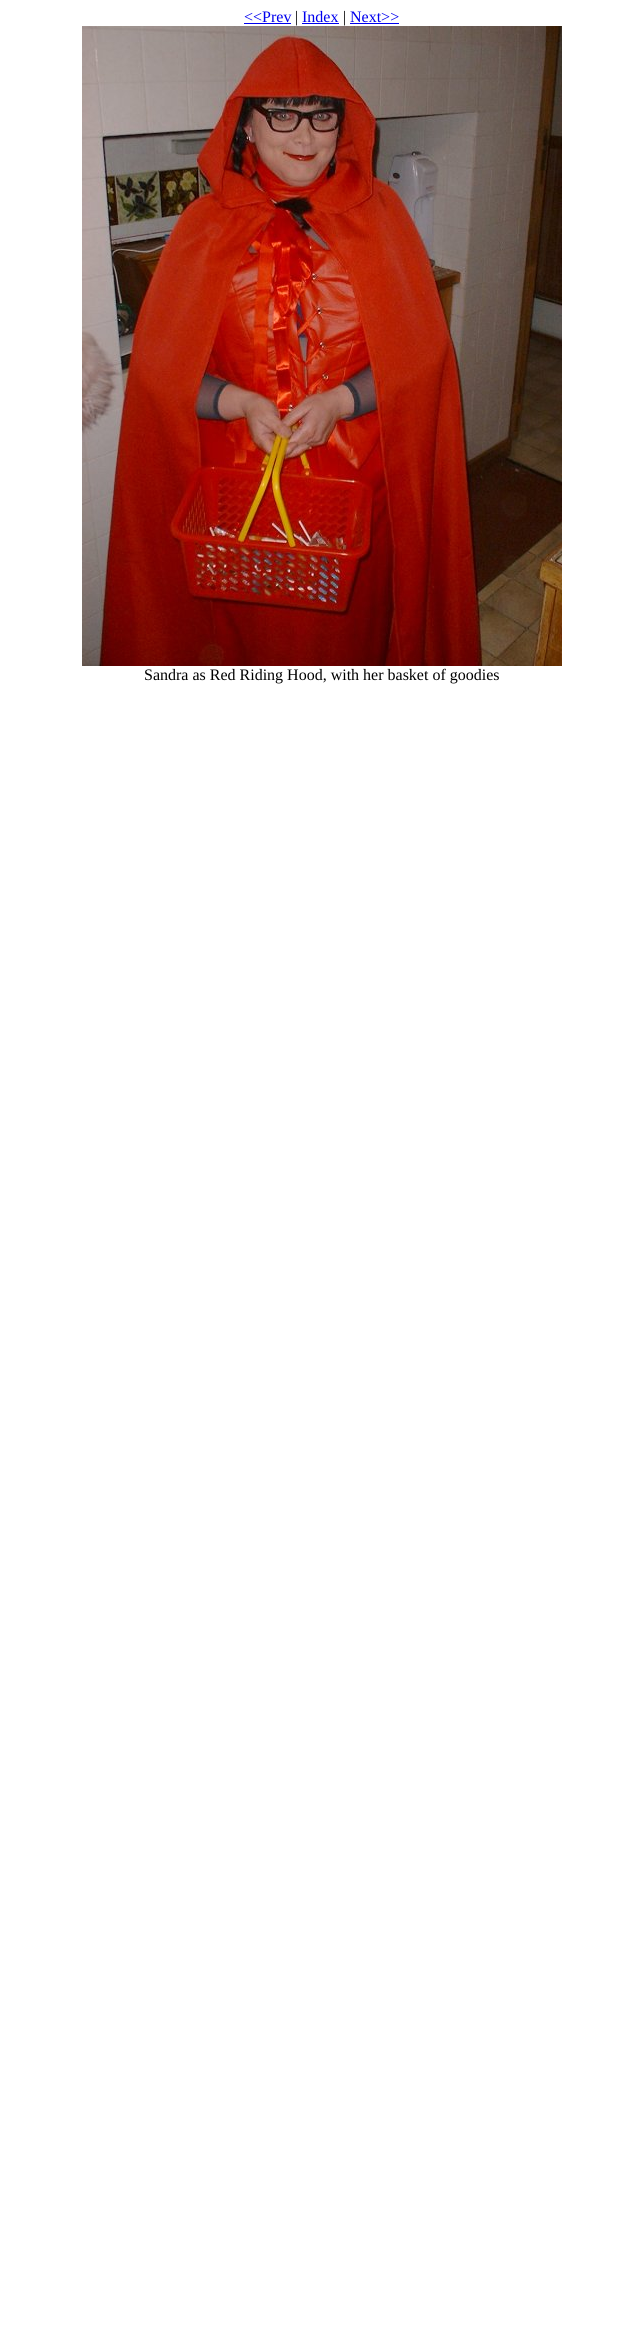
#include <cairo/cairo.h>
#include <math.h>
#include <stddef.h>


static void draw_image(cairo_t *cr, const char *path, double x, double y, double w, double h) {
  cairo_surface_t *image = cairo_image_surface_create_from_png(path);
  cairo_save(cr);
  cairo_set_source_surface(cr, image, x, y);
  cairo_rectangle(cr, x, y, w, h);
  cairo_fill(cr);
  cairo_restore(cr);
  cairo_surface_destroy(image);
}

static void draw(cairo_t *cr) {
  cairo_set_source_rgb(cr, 1, 1, 1);
  cairo_paint(cr);
  cairo_set_source_rgb(cr, 0, 0, 238 / 255.0);
  cairo_rectangle(cr, 244, 23, 47, 1);
  cairo_fill(cr);
  cairo_rectangle(cr, 302, 23, 37, 1);
  cairo_fill(cr);
  cairo_rectangle(cr, 350, 23, 49, 1);
  cairo_fill(cr);
  draw_image(cr, "images/1.png", 82, 26, 480, 640);
  cairo_select_font_face(cr, "Liberation Serif", CAIRO_FONT_SLANT_NORMAL, CAIRO_FONT_WEIGHT_NORMAL);
  cairo_set_font_size(cr, 16);
  cairo_move_to(cr, 244, 22);
  cairo_show_text(cr, "<<Prev");
  cairo_set_source_rgb(cr, 0, 0, 0);
  cairo_move_to(cr, 295, 22);
  cairo_show_text(cr, "|");
  cairo_set_source_rgb(cr, 0, 0, 238 / 255.0);
  cairo_move_to(cr, 302, 22);
  cairo_show_text(cr, "Index");
  cairo_set_source_rgb(cr, 0, 0, 0);
  cairo_move_to(cr, 343, 22);
  cairo_show_text(cr, "|");
  cairo_set_source_rgb(cr, 0, 0, 238 / 255.0);
  cairo_move_to(cr, 350, 22);
  cairo_show_text(cr, "Next>>");
  cairo_set_source_rgb(cr, 0, 0, 0);
  cairo_move_to(cr, 144, 680);
  cairo_show_text(cr, "Sandra as Red Riding Hood, with her basket of goodies");
}

int main(void) {
  cairo_surface_t *surface = cairo_image_surface_create(CAIRO_FORMAT_RGB24, 643, 2332);
  cairo_t *cr = cairo_create(surface);
  cairo_font_options_t *options = cairo_font_options_create();
  cairo_font_options_set_hint_metrics(options, CAIRO_HINT_METRICS_OFF);
  cairo_font_options_set_hint_style(options, CAIRO_HINT_STYLE_NONE);
  cairo_set_font_options(cr, options);
  cairo_set_miter_limit(cr, 4);
  draw(cr);
  cairo_surface_write_to_png(surface, "out.png");
  cairo_font_options_destroy(options);
  cairo_destroy(cr);
  cairo_surface_destroy(surface);
  return 0;
}
